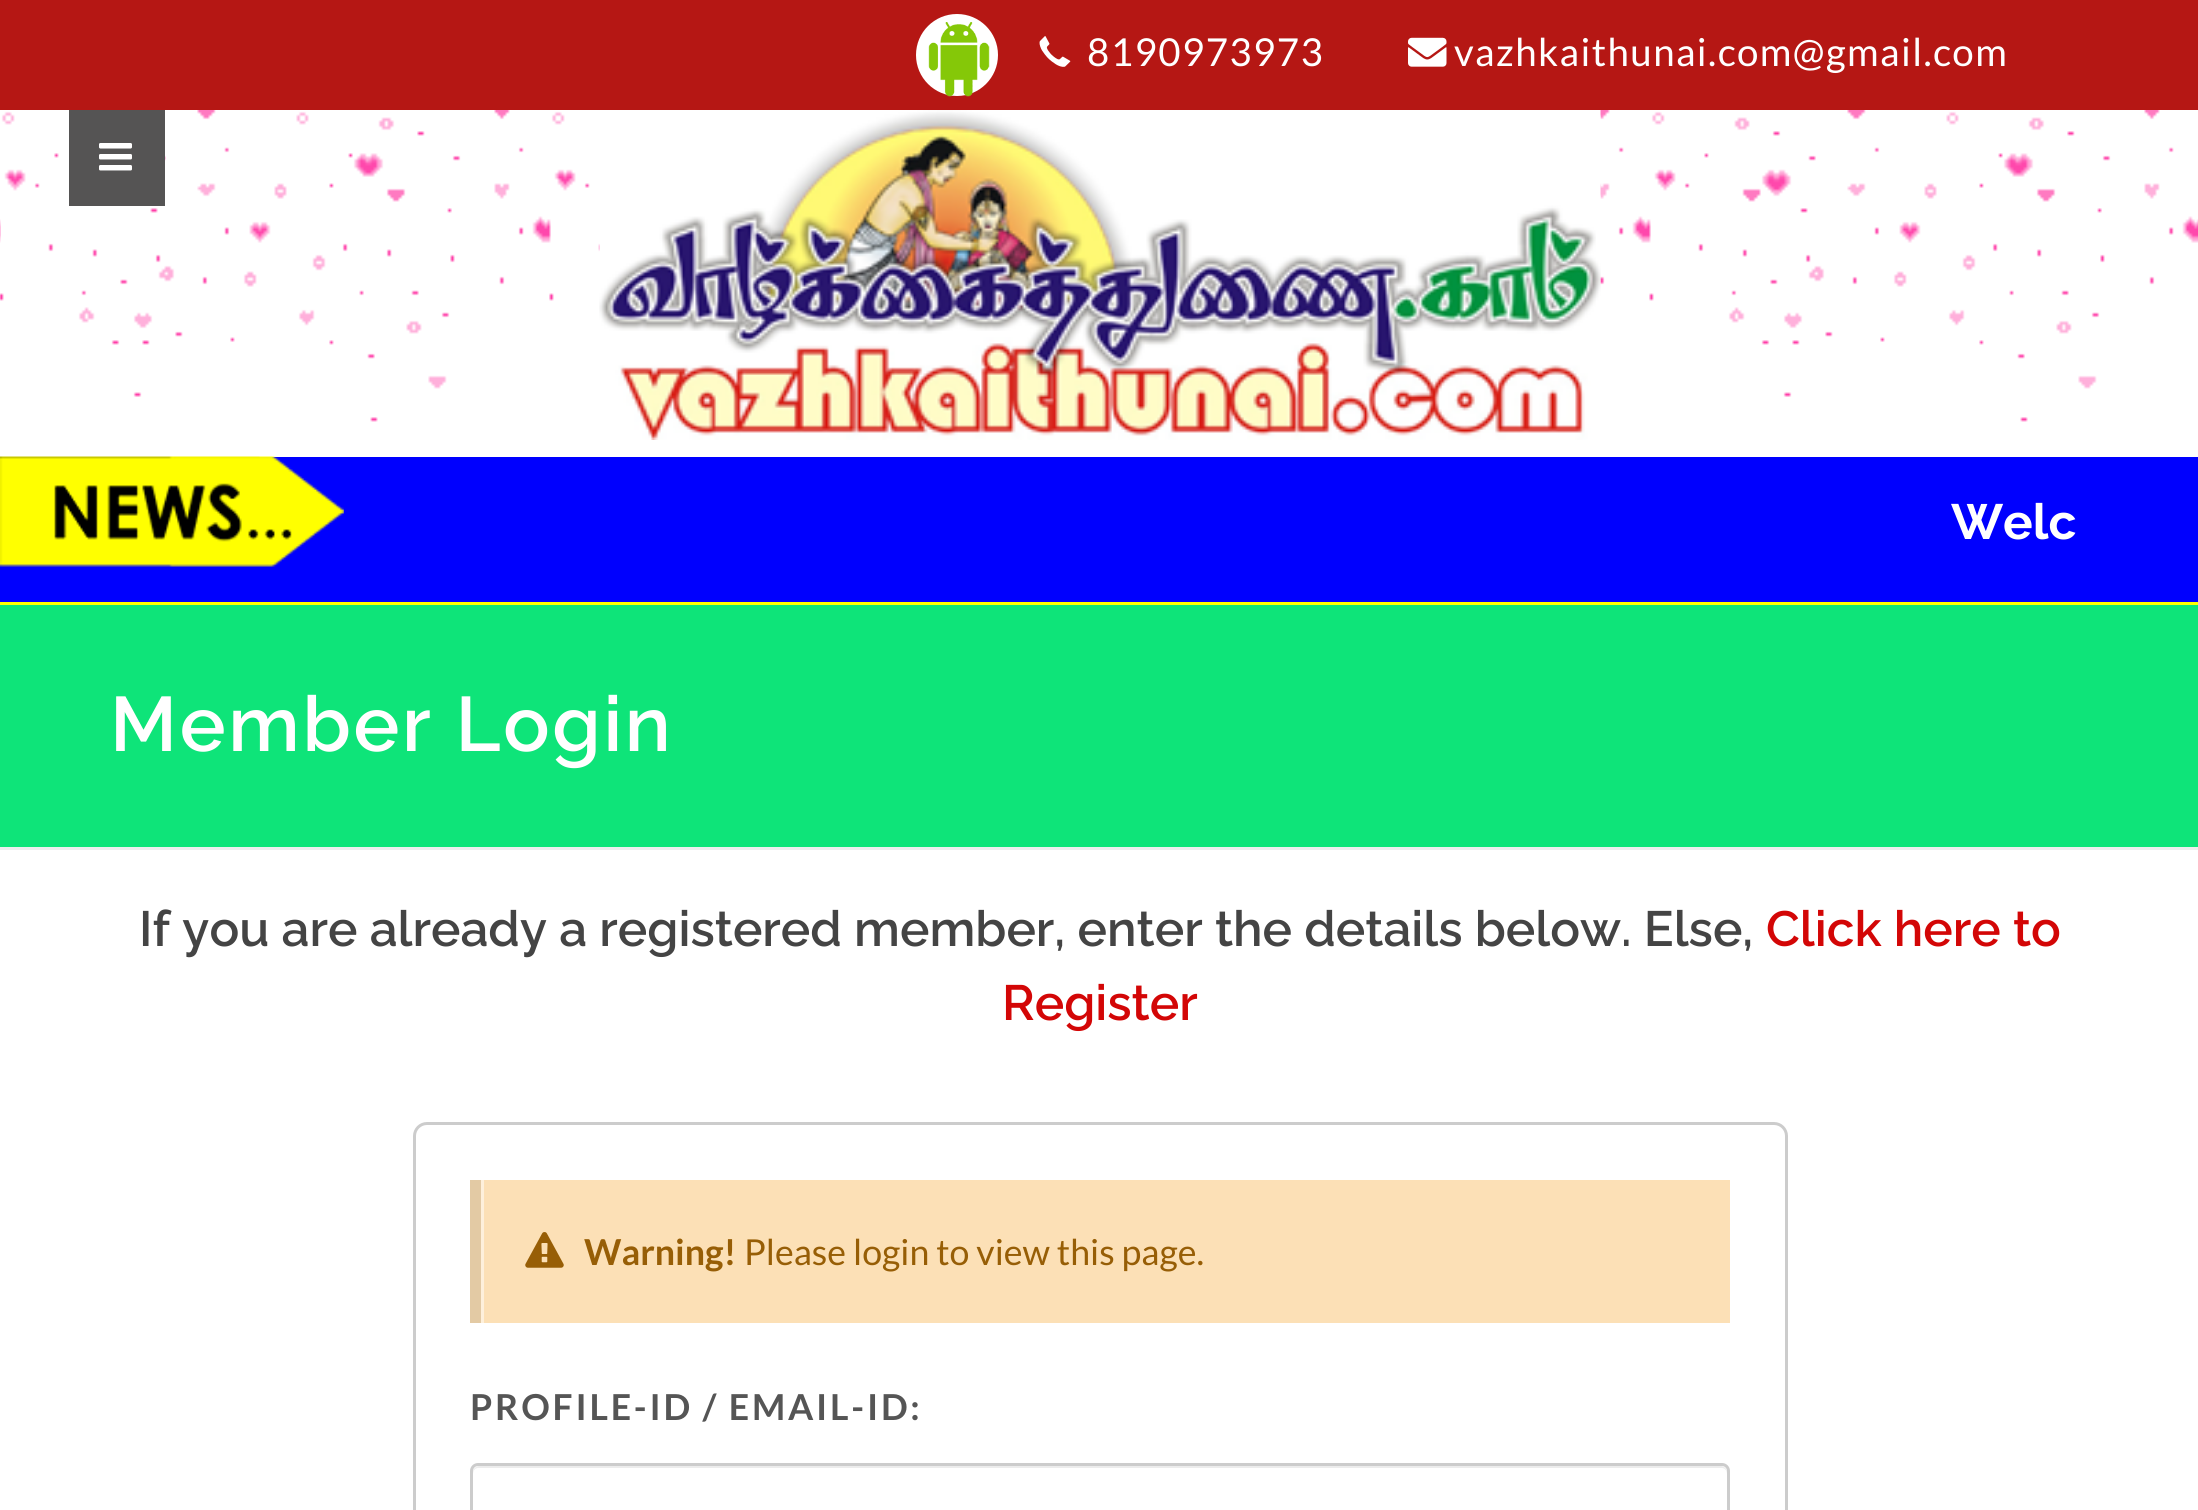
#include <cairo/cairo.h>
#include <math.h>
#include <stddef.h>


static void draw_spaced(cairo_t *cr, double x, double y, const char *s, double letter, double word) {
  cairo_move_to(cr, x, y);
  while (*s) {
    char ch[5] = {0};
    int n = 0;
    do ch[n++] = *s++; while ((*s & 0xC0) == 0x80);
    cairo_show_text(cr, ch);
    cairo_rel_move_to(cr, letter + word * (*ch == ' '), 0);
  }
}

static void rounded_rect(cairo_t *cr, double x, double y, double w, double h, double r) {
  cairo_new_sub_path(cr);
  cairo_arc(cr, x + w - r, y + h - r, r, 0, M_PI / 2);
  cairo_arc(cr, x + r, y + h - r, r, M_PI / 2, M_PI);
  cairo_arc(cr, x + r, y + r, r, M_PI, 1.5 * M_PI);
  cairo_arc(cr, x + w - r, y + r, r, 1.5 * M_PI, 2 * M_PI);
  cairo_close_path(cr);
}

static void draw_image(cairo_t *cr, const char *path, double x, double y, double w, double h) {
  cairo_surface_t *image = cairo_image_surface_create_from_png(path);
  cairo_save(cr);
  cairo_set_source_surface(cr, image, x, y);
  cairo_rectangle(cr, x, y, w, h);
  cairo_fill(cr);
  cairo_restore(cr);
  cairo_surface_destroy(image);
}

static void draw(cairo_t *cr) {
  cairo_set_source_rgb(cr, 1, 1, 1);
  cairo_paint(cr);
  cairo_set_source_rgb(cr, 181 / 255.0, 23 / 255.0, 20 / 255.0);
  cairo_rectangle(cr, 0, 0, 2198, 110);
  cairo_fill(cr);
  cairo_set_source_rgb(cr, 1, 1, 1);
  cairo_arc(cr, 957, 55, 41, 0, 2 * M_PI);
  cairo_fill(cr);
  draw_image(cr, "images/1.png", 928, 22, 62, 75);
  draw_image(cr, "images/2.png", 1039, 36, 32, 31);
  draw_image(cr, "images/3.png", 1408, 37, 39, 30);
  draw_image(cr, "images/4.png", 0, 110, 2198, 312);
  cairo_set_source_rgb(cr, 85 / 255.0, 84 / 255.0, 84 / 255.0);
  cairo_rectangle(cr, 69, 110, 96, 96);
  cairo_fill(cr);
  draw_image(cr, "images/5.png", 99, 143, 33, 28);
  draw_image(cr, "images/6.png", 599, 110, 1002, 330);
  cairo_set_source_rgb(cr, 0, 0, 254 / 255.0);
  cairo_rectangle(cr, 0, 457, 2198, 145);
  cairo_fill(cr);
  cairo_set_source_rgb(cr, 1, 1, 0);
  cairo_rectangle(cr, 0, 602, 2198, 3);
  cairo_fill(cr);
  draw_image(cr, "images/7.png", 0, 456, 344, 111);
  cairo_set_source_rgb(cr, 14 / 255.0, 228 / 255.0, 121 / 255.0);
  cairo_rectangle(cr, 0, 605, 2198, 242);
  cairo_fill(cr);
  cairo_set_source_rgb(cr, 238 / 255.0, 238 / 255.0, 238 / 255.0);
  cairo_rectangle(cr, 0, 847, 2198, 3);
  cairo_fill(cr);
  rounded_rect(cr, 414.5, 1123.5, 1372, 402, 12.5);
  cairo_set_source_rgb(cr, 204 / 255.0, 204 / 255.0, 204 / 255.0);
  cairo_set_line_width(cr, 3);
  cairo_stroke(cr);
  cairo_set_source_rgb(cr, 252 / 255.0, 224 / 255.0, 182 / 255.0);
  cairo_rectangle(cr, 484, 1180, 1246, 143);
  cairo_fill(cr);
  cairo_set_source_rgb(cr, 227 / 255.0, 202 / 255.0, 164 / 255.0);
  cairo_rectangle(cr, 470, 1180, 11, 143);
  cairo_fill(cr);
  cairo_set_source_rgb(cr, 254 / 255.0, 240 / 255.0, 219 / 255.0);
  cairo_rectangle(cr, 481, 1180, 3, 143);
  cairo_fill(cr);
  draw_image(cr, "images/8.png", 525, 1232, 39, 36);
  cairo_set_source_rgb(cr, 236 / 255.0, 236 / 255.0, 236 / 255.0);
  cairo_new_path(cr);
  cairo_move_to(cr, 478, 1468);
  cairo_line_to(cr, 1722, 1468);
  cairo_curve_to(cr, 1725, 1468, 1727, 1471, 1727, 1474);
  cairo_line_to(cr, 1727, 1472);
  cairo_curve_to(cr, 1727, 1469, 1724, 1466, 1721, 1466);
  cairo_line_to(cr, 479, 1466);
  cairo_curve_to(cr, 476, 1466, 473, 1469, 473, 1472);
  cairo_line_to(cr, 473, 1474);
  cairo_curve_to(cr, 473, 1471, 475, 1468, 478, 1468);
  cairo_close_path(cr);
  cairo_fill(cr);
  rounded_rect(cr, 471.5, 1464.5, 1257, 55, 6.5);
  cairo_set_source_rgb(cr, 204 / 255.0, 204 / 255.0, 204 / 255.0);
  cairo_stroke(cr);
  cairo_select_font_face(cr, "Lato", CAIRO_FONT_SLANT_NORMAL, CAIRO_FONT_WEIGHT_NORMAL);
  cairo_set_font_size(cr, 38.5);
  cairo_set_source_rgb(cr, 1, 1, 1);
  draw_spaced(cr, 1087, 66, "8190973973", 1.4, 0);
  draw_spaced(cr, 1454, 66, "vazhkaithunai.com@gmail.com", 1.4, 0);
  cairo_select_font_face(cr, "Raleway", CAIRO_FONT_SLANT_NORMAL, CAIRO_FONT_WEIGHT_BOLD);
  cairo_set_font_size(cr, 49.5);
  cairo_move_to(cr, 1951, 539);
  cairo_show_text(cr, "Welc");
  cairo_select_font_face(cr, "Raleway SemiBold", CAIRO_FONT_SLANT_NORMAL, CAIRO_FONT_WEIGHT_NORMAL);
  cairo_set_font_size(cr, 77);
  draw_spaced(cr, 110, 751, "Member Login", 2.75, 0);
  cairo_set_font_size(cr, 49.5);
  cairo_set_source_rgb(cr, 68 / 255.0, 68 / 255.0, 68 / 255.0);
  cairo_move_to(cr, 139, 946);
  cairo_show_text(cr, "If you are already a registered member, enter the details below. Else,");
  cairo_set_source_rgb(cr, 211 / 255.0, 6 / 255.0, 6 / 255.0);
  cairo_move_to(cr, 1766, 946);
  cairo_show_text(cr, "Click here to");
  cairo_move_to(cr, 1002, 1020);
  cairo_show_text(cr, "Register");
  cairo_select_font_face(cr, "Lato", CAIRO_FONT_SLANT_NORMAL, CAIRO_FONT_WEIGHT_BOLD);
  cairo_set_font_size(cr, 35.75);
  cairo_set_source_rgb(cr, 151 / 255.0, 94 / 255.0, 6 / 255.0);
  cairo_move_to(cr, 584, 1265);
  cairo_show_text(cr, "Warning!");
  cairo_select_font_face(cr, "Lato", CAIRO_FONT_SLANT_NORMAL, CAIRO_FONT_WEIGHT_NORMAL);
  cairo_move_to(cr, 744, 1265);
  cairo_show_text(cr, "Please login to view this page.");
  cairo_select_font_face(cr, "Lato", CAIRO_FONT_SLANT_NORMAL, CAIRO_FONT_WEIGHT_BOLD);
  cairo_set_source_rgb(cr, 85 / 255.0, 85 / 255.0, 85 / 255.0);
  draw_spaced(cr, 470, 1420, "PROFILE-ID / EMAIL-ID:", 2.75, 0);
}

int main(void) {
  cairo_surface_t *surface = cairo_image_surface_create(CAIRO_FORMAT_RGB24, 2198, 1510);
  cairo_t *cr = cairo_create(surface);
  cairo_font_options_t *options = cairo_font_options_create();
  cairo_font_options_set_hint_metrics(options, CAIRO_HINT_METRICS_OFF);
  cairo_font_options_set_hint_style(options, CAIRO_HINT_STYLE_NONE);
  cairo_set_font_options(cr, options);
  cairo_set_miter_limit(cr, 4);
  draw(cr);
  cairo_surface_write_to_png(surface, "out.png");
  cairo_font_options_destroy(options);
  cairo_destroy(cr);
  cairo_surface_destroy(surface);
  return 0;
}
